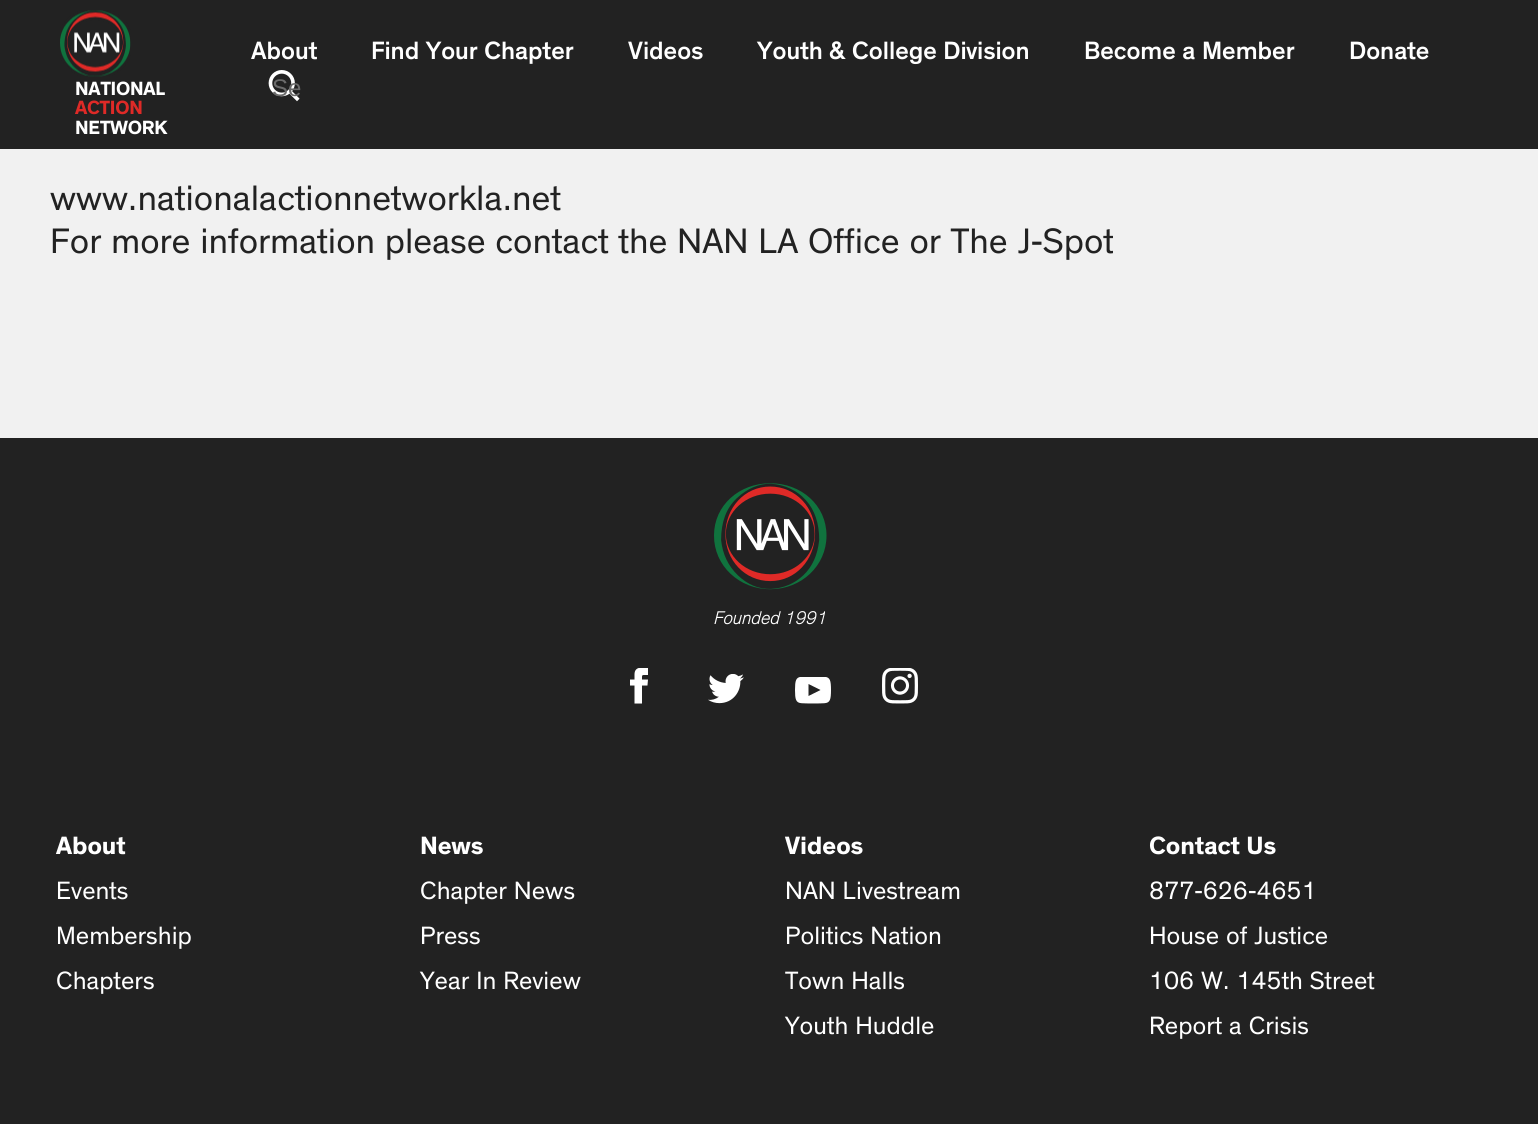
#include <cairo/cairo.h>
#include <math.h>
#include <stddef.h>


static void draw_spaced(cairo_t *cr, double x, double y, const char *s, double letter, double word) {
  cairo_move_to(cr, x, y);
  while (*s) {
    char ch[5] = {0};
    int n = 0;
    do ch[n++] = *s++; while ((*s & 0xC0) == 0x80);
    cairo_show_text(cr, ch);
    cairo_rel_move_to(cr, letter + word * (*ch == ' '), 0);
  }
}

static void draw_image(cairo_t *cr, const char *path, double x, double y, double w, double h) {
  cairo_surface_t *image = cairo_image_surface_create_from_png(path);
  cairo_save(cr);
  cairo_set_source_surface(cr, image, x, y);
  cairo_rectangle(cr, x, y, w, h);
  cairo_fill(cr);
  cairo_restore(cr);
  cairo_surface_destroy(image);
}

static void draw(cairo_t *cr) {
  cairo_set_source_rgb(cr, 241 / 255.0, 241 / 255.0, 241 / 255.0);
  cairo_paint(cr);
  cairo_set_source_rgb(cr, 34 / 255.0, 34 / 255.0, 34 / 255.0);
  cairo_rectangle(cr, 0, 0, 1538, 149);
  cairo_fill(cr);
  draw_image(cr, "images/1.png", 268, 70, 32, 32);
  draw_image(cr, "images/2.png", 60, 10, 71, 67);
  cairo_rectangle(cr, 0, 438, 1538, 686);
  cairo_fill(cr);
  draw_image(cr, "images/3.png", 714, 483, 113, 107);
  draw_image(cr, "images/4.png", 630, 668, 18, 36);
  draw_image(cr, "images/5.png", 708, 674, 36, 30);
  draw_image(cr, "images/6.png", 795, 677, 36, 27);
  draw_image(cr, "images/7.png", 882, 668, 36, 36);
  cairo_select_font_face(cr, "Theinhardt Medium", CAIRO_FONT_SLANT_NORMAL, CAIRO_FONT_WEIGHT_NORMAL);
  cairo_set_font_size(cr, 25.5);
  cairo_set_source_rgb(cr, 1, 1, 1);
  cairo_move_to(cr, 251, 59);
  cairo_show_text(cr, "About");
  cairo_move_to(cr, 371, 59);
  cairo_show_text(cr, "Find Your Chapter");
  cairo_move_to(cr, 628, 59);
  cairo_show_text(cr, "Videos");
  cairo_move_to(cr, 757, 59);
  cairo_show_text(cr, "Youth & College Division");
  cairo_move_to(cr, 1084, 59);
  cairo_show_text(cr, "Become a Member");
  cairo_move_to(cr, 1349, 59);
  cairo_show_text(cr, "Donate");
  cairo_select_font_face(cr, "Liberation Sans", CAIRO_FONT_SLANT_NORMAL, CAIRO_FONT_WEIGHT_NORMAL);
  cairo_set_font_size(cr, 24);
  cairo_set_source_rgb(cr, 107 / 255.0, 107 / 255.0, 107 / 255.0);
  cairo_move_to(cr, 272, 96);
  cairo_show_text(cr, "Se");
  cairo_select_font_face(cr, "Theinhardt", CAIRO_FONT_SLANT_NORMAL, CAIRO_FONT_WEIGHT_BOLD);
  cairo_set_font_size(cr, 19.5);
  cairo_set_source_rgb(cr, 1, 1, 1);
  draw_spaced(cr, 75, 95, "NATIONAL", -0.25, 0);
  cairo_set_source_rgb(cr, 223 / 255.0, 42 / 255.0, 39 / 255.0);
  draw_spaced(cr, 75, 114, "ACTION", -0.25, 0);
  cairo_set_source_rgb(cr, 1, 1, 1);
  draw_spaced(cr, 75, 134, "NETWORK", -0.25, 0);
  cairo_select_font_face(cr, "Theinhardt", CAIRO_FONT_SLANT_NORMAL, CAIRO_FONT_WEIGHT_NORMAL);
  cairo_set_font_size(cr, 36);
  cairo_set_source_rgb(cr, 34 / 255.0, 34 / 255.0, 34 / 255.0);
  cairo_move_to(cr, 50, 210);
  cairo_show_text(cr, "www.nationalactionnetworkla.net");
  cairo_move_to(cr, 50, 253);
  cairo_show_text(cr, "For more information please contact the NAN LA Office or The J-Spot");
  cairo_select_font_face(cr, "Theinhardt", CAIRO_FONT_SLANT_ITALIC, CAIRO_FONT_WEIGHT_BOLD);
  cairo_set_font_size(cr, 18);
  cairo_set_source_rgb(cr, 1, 1, 1);
  cairo_move_to(cr, 713, 624);
  cairo_show_text(cr, "Founded 1991");
  cairo_select_font_face(cr, "Theinhardt", CAIRO_FONT_SLANT_NORMAL, CAIRO_FONT_WEIGHT_BOLD);
  cairo_set_font_size(cr, 25.5);
  cairo_move_to(cr, 56, 854);
  cairo_show_text(cr, "About");
  cairo_select_font_face(cr, "Theinhardt", CAIRO_FONT_SLANT_NORMAL, CAIRO_FONT_WEIGHT_NORMAL);
  cairo_move_to(cr, 56, 899);
  cairo_show_text(cr, "Events");
  cairo_move_to(cr, 56, 944);
  cairo_show_text(cr, "Membership");
  cairo_move_to(cr, 56, 989);
  cairo_show_text(cr, "Chapters");
  cairo_select_font_face(cr, "Theinhardt", CAIRO_FONT_SLANT_NORMAL, CAIRO_FONT_WEIGHT_BOLD);
  cairo_move_to(cr, 420, 854);
  cairo_show_text(cr, "News");
  cairo_select_font_face(cr, "Theinhardt", CAIRO_FONT_SLANT_NORMAL, CAIRO_FONT_WEIGHT_NORMAL);
  cairo_move_to(cr, 420, 899);
  cairo_show_text(cr, "Chapter News");
  cairo_move_to(cr, 420, 944);
  cairo_show_text(cr, "Press");
  cairo_move_to(cr, 420, 989);
  cairo_show_text(cr, "Year In Review");
  cairo_select_font_face(cr, "Theinhardt", CAIRO_FONT_SLANT_NORMAL, CAIRO_FONT_WEIGHT_BOLD);
  cairo_move_to(cr, 785, 854);
  cairo_show_text(cr, "Videos");
  cairo_select_font_face(cr, "Theinhardt", CAIRO_FONT_SLANT_NORMAL, CAIRO_FONT_WEIGHT_NORMAL);
  cairo_move_to(cr, 785, 899);
  cairo_show_text(cr, "NAN Livestream");
  cairo_move_to(cr, 785, 944);
  cairo_show_text(cr, "Politics Nation");
  cairo_move_to(cr, 785, 989);
  cairo_show_text(cr, "Town Halls");
  cairo_move_to(cr, 785, 1034);
  cairo_show_text(cr, "Youth Huddle");
  cairo_select_font_face(cr, "Theinhardt", CAIRO_FONT_SLANT_NORMAL, CAIRO_FONT_WEIGHT_BOLD);
  cairo_move_to(cr, 1149, 854);
  cairo_show_text(cr, "Contact Us");
  cairo_select_font_face(cr, "Theinhardt", CAIRO_FONT_SLANT_NORMAL, CAIRO_FONT_WEIGHT_NORMAL);
  cairo_move_to(cr, 1149, 899);
  cairo_show_text(cr, "877-626-4651");
  cairo_move_to(cr, 1149, 944);
  cairo_show_text(cr, "House of Justice");
  cairo_move_to(cr, 1149, 989);
  cairo_show_text(cr, "106 W. 145th Street");
  cairo_move_to(cr, 1149, 1034);
  cairo_show_text(cr, "Report a Crisis");
}

int main(void) {
  cairo_surface_t *surface = cairo_image_surface_create(CAIRO_FORMAT_RGB24, 1538, 1124);
  cairo_t *cr = cairo_create(surface);
  cairo_font_options_t *options = cairo_font_options_create();
  cairo_font_options_set_hint_metrics(options, CAIRO_HINT_METRICS_OFF);
  cairo_font_options_set_hint_style(options, CAIRO_HINT_STYLE_NONE);
  cairo_set_font_options(cr, options);
  cairo_set_miter_limit(cr, 4);
  draw(cr);
  cairo_surface_write_to_png(surface, "out.png");
  cairo_font_options_destroy(options);
  cairo_destroy(cr);
  cairo_surface_destroy(surface);
  return 0;
}
